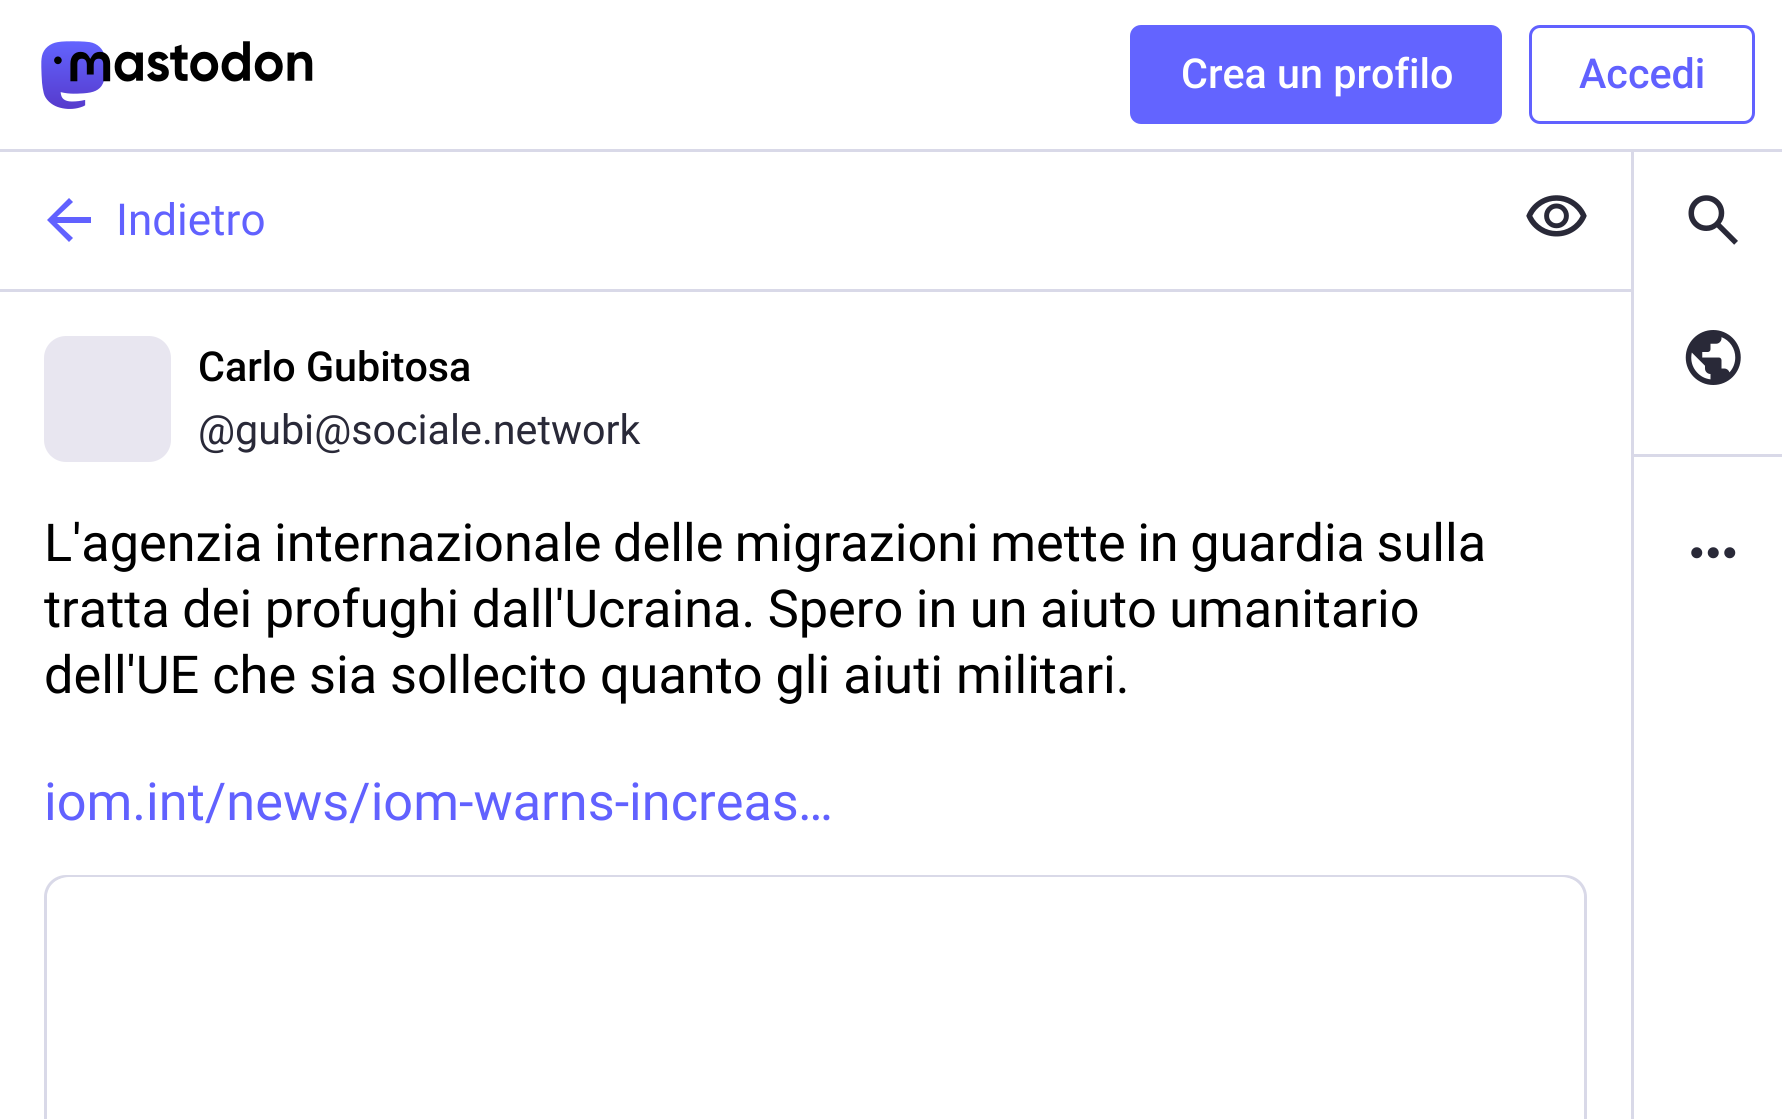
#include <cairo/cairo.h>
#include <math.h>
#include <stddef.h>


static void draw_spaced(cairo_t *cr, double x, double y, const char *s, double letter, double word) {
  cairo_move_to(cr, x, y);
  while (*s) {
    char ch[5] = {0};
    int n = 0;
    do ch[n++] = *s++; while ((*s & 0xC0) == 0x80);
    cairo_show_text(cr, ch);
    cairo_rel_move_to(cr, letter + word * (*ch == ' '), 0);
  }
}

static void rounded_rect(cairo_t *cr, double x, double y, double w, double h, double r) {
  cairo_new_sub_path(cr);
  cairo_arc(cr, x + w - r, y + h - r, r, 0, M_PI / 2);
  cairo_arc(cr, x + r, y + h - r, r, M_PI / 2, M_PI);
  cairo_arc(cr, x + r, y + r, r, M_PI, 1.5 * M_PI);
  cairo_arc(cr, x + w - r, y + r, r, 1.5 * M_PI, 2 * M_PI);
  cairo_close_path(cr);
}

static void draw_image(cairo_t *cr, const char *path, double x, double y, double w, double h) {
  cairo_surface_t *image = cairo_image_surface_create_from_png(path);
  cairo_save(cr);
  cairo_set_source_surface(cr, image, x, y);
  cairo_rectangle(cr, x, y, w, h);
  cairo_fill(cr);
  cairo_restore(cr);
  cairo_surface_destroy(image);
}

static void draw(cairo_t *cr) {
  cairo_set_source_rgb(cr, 1, 1, 1);
  cairo_paint(cr);
  cairo_set_source_rgb(cr, 217 / 255.0, 217 / 255.0, 232 / 255.0);
  cairo_rectangle(cr, 1631, 151, 3, 968);
  cairo_fill(cr);
  cairo_rectangle(cr, 0, 149, 1782, 3);
  cairo_fill(cr);
  draw_image(cr, "images/1.png", 41, 41, 272, 68);
  cairo_set_source_rgb(cr, 99 / 255.0, 100 / 255.0, 1);
  rounded_rect(cr, 1130, 25, 372, 99, 11);
  cairo_fill(cr);
  rounded_rect(cr, 1530.5, 26.5, 223, 96, 9.5);
  cairo_set_source_rgb(cr, 97 / 255.0, 97 / 255.0, 1);
  cairo_set_line_width(cr, 3);
  cairo_stroke(cr);
  cairo_set_source_rgb(cr, 217 / 255.0, 217 / 255.0, 232 / 255.0);
  cairo_rectangle(cr, 0, 289, 1631, 3);
  cairo_fill(cr);
  cairo_set_source_rgb(cr, 97 / 255.0, 97 / 255.0, 1);
  cairo_new_path(cr);
  cairo_move_to(cr, 57, 223);
  cairo_line_to(cr, 73, 238);
  cairo_line_to(cr, 69, 242);
  cairo_line_to(cr, 47, 220);
  cairo_line_to(cr, 69, 198);
  cairo_line_to(cr, 73, 202);
  cairo_line_to(cr, 57, 217);
  cairo_line_to(cr, 91, 217);
  cairo_line_to(cr, 91, 223);
  cairo_close_path(cr);
  cairo_fill(cr);
  draw_image(cr, "images/2.png", 1526, 195, 61, 42);
  cairo_set_source_rgb(cr, 232 / 255.0, 230 / 255.0, 240 / 255.0);
  rounded_rect(cr, 44, 336, 127, 126, 22);
  cairo_fill(cr);
  rounded_rect(cr, 45.5, 876.5, 1540, 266, 20.5);
  cairo_set_source_rgb(cr, 217 / 255.0, 217 / 255.0, 232 / 255.0);
  cairo_stroke(cr);
  cairo_set_source_rgb(cr, 1, 1, 1);
  cairo_new_path(cr);
  cairo_move_to(cr, 69, 877);
  cairo_line_to(cr, 1562, 877);
  cairo_curve_to(cr, 1574, 877, 1584, 887, 1584, 899);
  cairo_line_to(cr, 1584, 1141);
  cairo_line_to(cr, 47, 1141);
  cairo_line_to(cr, 47, 899);
  cairo_curve_to(cr, 47, 887, 57, 877, 69, 877);
  cairo_close_path(cr);
  cairo_fill(cr);
  draw_image(cr, "images/3.png", 1688, 195, 50, 50);
  draw_image(cr, "images/4.png", 1685, 330, 56, 55);
  cairo_set_source_rgb(cr, 217 / 255.0, 217 / 255.0, 232 / 255.0);
  cairo_rectangle(cr, 1634, 454, 148, 3);
  cairo_fill(cr);
  draw_image(cr, "images/5.png", 1691, 547, 45, 12);
  cairo_select_font_face(cr, "Roboto Medium", CAIRO_FONT_SLANT_NORMAL, CAIRO_FONT_WEIGHT_NORMAL);
  cairo_set_font_size(cr, 41.25);
  cairo_set_source_rgb(cr, 1, 1, 1);
  cairo_move_to(cr, 1181, 88);
  cairo_show_text(cr, "Crea un profilo");
  cairo_set_source_rgb(cr, 97 / 255.0, 97 / 255.0, 1);
  cairo_move_to(cr, 1579, 88);
  cairo_show_text(cr, "Accedi");
  cairo_select_font_face(cr, "Roboto", CAIRO_FONT_SLANT_NORMAL, CAIRO_FONT_WEIGHT_NORMAL);
  cairo_set_font_size(cr, 44);
  cairo_move_to(cr, 116, 235);
  cairo_show_text(cr, "Indietro");
  cairo_select_font_face(cr, "Roboto Medium", CAIRO_FONT_SLANT_NORMAL, CAIRO_FONT_WEIGHT_NORMAL);
  cairo_set_font_size(cr, 41.25);
  cairo_set_source_rgb(cr, 0, 0, 0);
  cairo_move_to(cr, 198, 381);
  cairo_show_text(cr, "Carlo Gubitosa");
  cairo_select_font_face(cr, "Roboto", CAIRO_FONT_SLANT_NORMAL, CAIRO_FONT_WEIGHT_NORMAL);
  cairo_set_source_rgb(cr, 41 / 255.0, 41 / 255.0, 56 / 255.0);
  cairo_move_to(cr, 198, 444);
  cairo_show_text(cr, "@gubi@sociale.network");
  cairo_set_font_size(cr, 52.25);
  cairo_set_source_rgb(cr, 0, 0, 0);
  draw_spaced(cr, 44, 561, "L'agenzia internazionale delle migrazioni mette in guardia sulla", 0, -1.5);
  draw_spaced(cr, 44, 627, "tratta dei profughi dall'Ucraina. Spero in un aiuto umanitario", 0, -0.5);
  cairo_move_to(cr, 44, 693);
  cairo_show_text(cr, "dell'UE che sia sollecito quanto gli aiuti militari.");
  cairo_set_source_rgb(cr, 97 / 255.0, 97 / 255.0, 1);
  cairo_move_to(cr, 44, 820);
  cairo_show_text(cr, "iom.int/news/iom-warns-increas");
  cairo_move_to(cr, 798, 820);
  cairo_show_text(cr, "…");
}

int main(void) {
  cairo_surface_t *surface = cairo_image_surface_create(CAIRO_FORMAT_RGB24, 1782, 1119);
  cairo_t *cr = cairo_create(surface);
  cairo_font_options_t *options = cairo_font_options_create();
  cairo_font_options_set_hint_metrics(options, CAIRO_HINT_METRICS_OFF);
  cairo_font_options_set_hint_style(options, CAIRO_HINT_STYLE_NONE);
  cairo_set_font_options(cr, options);
  cairo_set_miter_limit(cr, 4);
  draw(cr);
  cairo_surface_write_to_png(surface, "out.png");
  cairo_font_options_destroy(options);
  cairo_destroy(cr);
  cairo_surface_destroy(surface);
  return 0;
}
